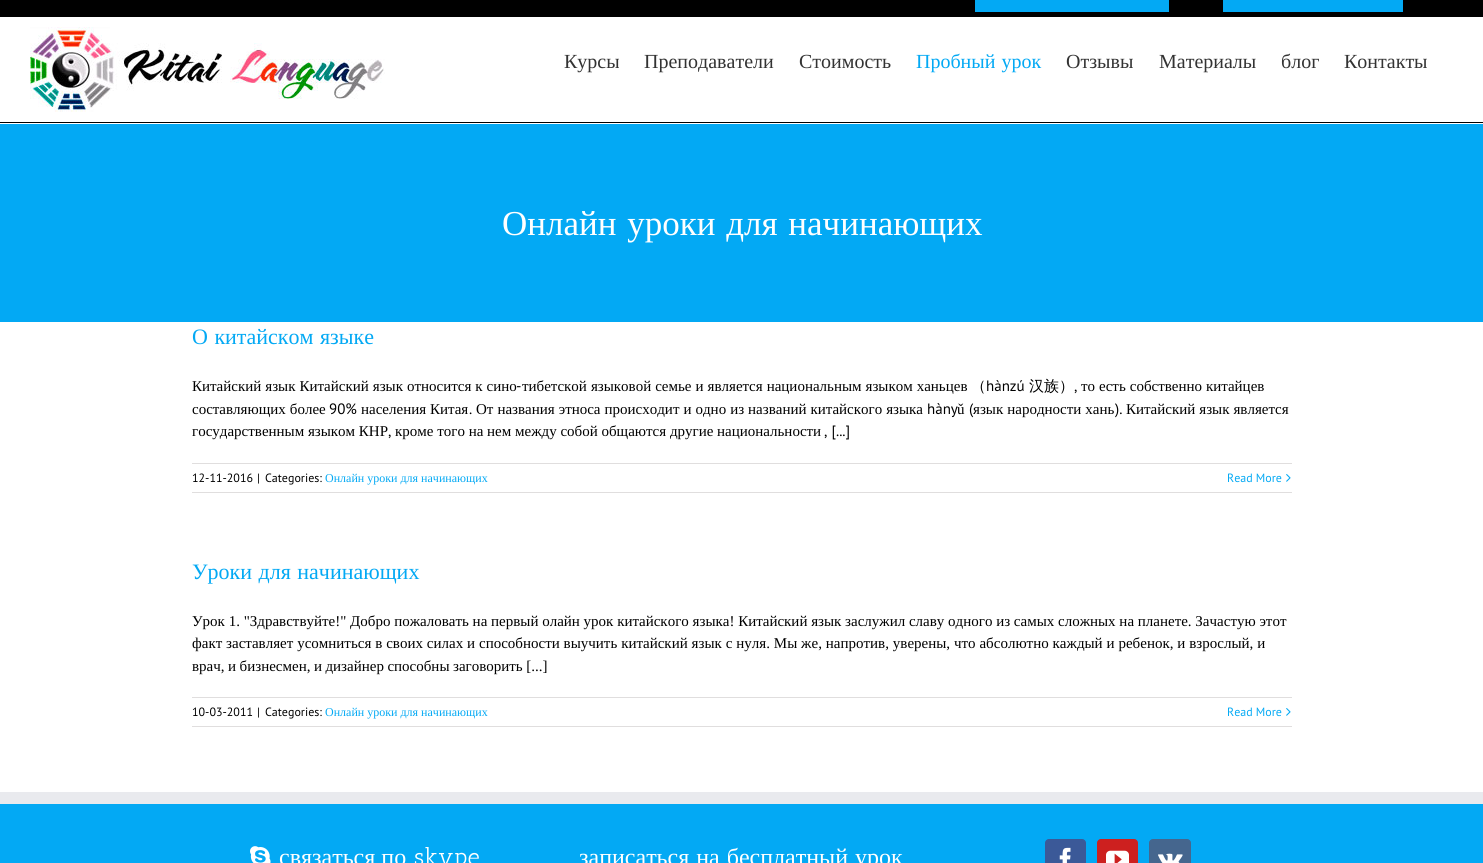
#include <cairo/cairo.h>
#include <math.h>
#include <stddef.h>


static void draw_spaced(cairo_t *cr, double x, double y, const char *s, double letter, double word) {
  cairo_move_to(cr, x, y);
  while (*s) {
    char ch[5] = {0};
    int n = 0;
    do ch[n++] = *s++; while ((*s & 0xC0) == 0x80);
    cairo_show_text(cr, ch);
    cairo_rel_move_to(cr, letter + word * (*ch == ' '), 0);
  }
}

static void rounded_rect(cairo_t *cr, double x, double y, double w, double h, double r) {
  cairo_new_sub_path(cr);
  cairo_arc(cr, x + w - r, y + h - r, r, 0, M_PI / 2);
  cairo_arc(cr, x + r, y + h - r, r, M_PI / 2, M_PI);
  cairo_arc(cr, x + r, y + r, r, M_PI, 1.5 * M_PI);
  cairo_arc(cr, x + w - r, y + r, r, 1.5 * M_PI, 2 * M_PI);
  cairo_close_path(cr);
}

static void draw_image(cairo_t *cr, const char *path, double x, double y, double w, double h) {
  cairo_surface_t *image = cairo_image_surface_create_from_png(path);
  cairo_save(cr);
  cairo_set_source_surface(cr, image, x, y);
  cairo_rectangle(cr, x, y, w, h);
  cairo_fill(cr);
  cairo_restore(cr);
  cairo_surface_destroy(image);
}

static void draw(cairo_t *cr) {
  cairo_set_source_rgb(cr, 1, 1, 1);
  cairo_paint(cr);
  cairo_set_source_rgb(cr, 0, 0, 0);
  cairo_rectangle(cr, 0, 0, 1483, 17);
  cairo_fill(cr);
  cairo_set_source_rgb(cr, 3 / 255.0, 169 / 255.0, 244 / 255.0);
  cairo_rectangle(cr, 975, 0, 194, 12);
  cairo_fill(cr);
  cairo_rectangle(cr, 1223, 0, 180, 12);
  cairo_fill(cr);
  cairo_set_source_rgb(cr, 0, 0, 0);
  cairo_rectangle(cr, 0, 122, 1483, 1);
  cairo_fill(cr);
  draw_image(cr, "images/1.png", 30, 27, 355, 85);
  cairo_set_source_rgb(cr, 3 / 255.0, 169 / 255.0, 244 / 255.0);
  cairo_rectangle(cr, 0, 124, 1483, 198);
  cairo_fill(cr);
  cairo_set_source_rgb(cr, 224 / 255.0, 222 / 255.0, 222 / 255.0);
  cairo_rectangle(cr, 192, 463, 1100, 1);
  cairo_fill(cr);
  cairo_rectangle(cr, 192, 492, 1100, 1);
  cairo_fill(cr);
  draw_image(cr, "images/2.png", 1286, 474, 5, 8);
  cairo_rectangle(cr, 192, 697, 1100, 1);
  cairo_fill(cr);
  cairo_rectangle(cr, 192, 726, 1100, 1);
  cairo_fill(cr);
  draw_image(cr, "images/2.png", 1286, 708, 5, 8);
  cairo_set_source_rgb(cr, 3 / 255.0, 169 / 255.0, 244 / 255.0);
  cairo_rectangle(cr, 0, 804, 1483, 59);
  cairo_fill(cr);
  cairo_set_source_rgb(cr, 233 / 255.0, 234 / 255.0, 238 / 255.0);
  cairo_rectangle(cr, 0, 792, 1483, 12);
  cairo_fill(cr);
  draw_image(cr, "images/3.png", 250, 846, 21, 17);
  cairo_set_source_rgb(cr, 59 / 255.0, 89 / 255.0, 152 / 255.0);
  rounded_rect(cr, 1045.5, 839.5, 40, 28, 3.5);
  cairo_fill_preserve(cr);
  cairo_set_line_width(cr, 1);
  cairo_stroke(cr);
  draw_image(cr, "images/4.png", 1059, 847, 12, 16);
  cairo_set_source_rgb(cr, 205 / 255.0, 32 / 255.0, 31 / 255.0);
  rounded_rect(cr, 1097.5, 839.5, 40, 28, 3.5);
  cairo_fill_preserve(cr);
  cairo_stroke(cr);
  draw_image(cr, "images/5.png", 1106, 850, 23, 13);
  cairo_set_source_rgb(cr, 69 / 255.0, 102 / 255.0, 142 / 255.0);
  rounded_rect(cr, 1149.5, 839.5, 41, 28, 3.5);
  cairo_fill_preserve(cr);
  cairo_stroke(cr);
  draw_image(cr, "images/6.png", 1158, 853, 25, 10);
  cairo_select_font_face(cr, "Liberation Serif", CAIRO_FONT_SLANT_NORMAL, CAIRO_FONT_WEIGHT_NORMAL);
  cairo_set_font_size(cr, 20);
  cairo_set_source_rgb(cr, 51 / 255.0, 51 / 255.0, 51 / 255.0);
  cairo_move_to(cr, 564, 68);
  cairo_show_text(cr, "Курсы");
  cairo_move_to(cr, 644, 68);
  cairo_show_text(cr, "Преподаватели");
  cairo_move_to(cr, 799, 68);
  cairo_show_text(cr, "Стоимость");
  cairo_set_source_rgb(cr, 3 / 255.0, 169 / 255.0, 244 / 255.0);
  draw_spaced(cr, 916, 68, "Пробный урок", 0, 1);
  cairo_set_source_rgb(cr, 51 / 255.0, 51 / 255.0, 51 / 255.0);
  cairo_move_to(cr, 1066, 68);
  cairo_show_text(cr, "Отзывы");
  cairo_move_to(cr, 1159, 68);
  cairo_show_text(cr, "Материалы");
  cairo_move_to(cr, 1281, 68);
  cairo_show_text(cr, "блог");
  cairo_move_to(cr, 1344, 68);
  cairo_show_text(cr, "Контакты");
  cairo_set_font_size(cr, 35);
  cairo_set_source_rgb(cr, 1, 1, 1);
  draw_spaced(cr, 502, 235, "Онлайн уроки для начинающих", 0, 2);
  cairo_set_font_size(cr, 22);
  cairo_set_source_rgb(cr, 3 / 255.0, 169 / 255.0, 244 / 255.0);
  draw_spaced(cr, 192, 344, "О китайском языке", 0, 1);
  cairo_set_font_size(cr, 15);
  cairo_set_source_rgb(cr, 0, 0, 0);
  draw_spaced(cr, 192, 391, "Китайский язык Китайский язык относится к сино", 0, 0.25);
  cairo_select_font_face(cr, "PT Sans", CAIRO_FONT_SLANT_NORMAL, CAIRO_FONT_WEIGHT_NORMAL);
  cairo_move_to(cr, 516, 391);
  cairo_show_text(cr, "-");
  cairo_select_font_face(cr, "Liberation Serif", CAIRO_FONT_SLANT_NORMAL, CAIRO_FONT_WEIGHT_NORMAL);
  draw_spaced(cr, 522, 391, "тибетской языковой семье и является национальным языком ханьцев", 0, 0.25);
  cairo_select_font_face(cr, "WenQuanYi Zen Hei Medium", CAIRO_FONT_SLANT_NORMAL, CAIRO_FONT_WEIGHT_NORMAL);
  cairo_move_to(cr, 971, 391);
  cairo_show_text(cr, "（");
  cairo_select_font_face(cr, "PT Sans", CAIRO_FONT_SLANT_NORMAL, CAIRO_FONT_WEIGHT_NORMAL);
  cairo_move_to(cr, 986, 391);
  cairo_show_text(cr, "hànzú");
  cairo_select_font_face(cr, "WenQuanYi Zen Hei Medium", CAIRO_FONT_SLANT_NORMAL, CAIRO_FONT_WEIGHT_NORMAL);
  cairo_move_to(cr, 1029, 391);
  cairo_show_text(cr, "汉族）");
  cairo_select_font_face(cr, "Liberation Serif", CAIRO_FONT_SLANT_NORMAL, CAIRO_FONT_WEIGHT_NORMAL);
  draw_spaced(cr, 1081, 391, "то есть собственно китайцев", 0, 0.25);
  cairo_select_font_face(cr, "PT Sans", CAIRO_FONT_SLANT_NORMAL, CAIRO_FONT_WEIGHT_NORMAL);
  cairo_move_to(cr, 1074, 391);
  cairo_show_text(cr, ",");
  cairo_select_font_face(cr, "Liberation Serif", CAIRO_FONT_SLANT_NORMAL, CAIRO_FONT_WEIGHT_NORMAL);
  draw_spaced(cr, 192, 414, "составляющих более", 0, 0.25);
  cairo_select_font_face(cr, "PT Sans", CAIRO_FONT_SLANT_NORMAL, CAIRO_FONT_WEIGHT_NORMAL);
  cairo_move_to(cr, 329, 414);
  cairo_show_text(cr, "90%");
  cairo_select_font_face(cr, "Liberation Serif", CAIRO_FONT_SLANT_NORMAL, CAIRO_FONT_WEIGHT_NORMAL);
  draw_spaced(cr, 361, 414, "населения Китая", 0, 0.25);
  cairo_select_font_face(cr, "PT Sans", CAIRO_FONT_SLANT_NORMAL, CAIRO_FONT_WEIGHT_NORMAL);
  cairo_move_to(cr, 469, 414);
  cairo_show_text(cr, ".");
  cairo_select_font_face(cr, "Liberation Serif", CAIRO_FONT_SLANT_NORMAL, CAIRO_FONT_WEIGHT_NORMAL);
  draw_spaced(cr, 476, 414, "От названия этноса происходит и одно из названий китайского языка", 0, 0.25);
  cairo_select_font_face(cr, "PT Sans", CAIRO_FONT_SLANT_NORMAL, CAIRO_FONT_WEIGHT_NORMAL);
  cairo_move_to(cr, 927, 414);
  cairo_show_text(cr, "hàny");
  cairo_select_font_face(cr, "Liberation Serif", CAIRO_FONT_SLANT_NORMAL, CAIRO_FONT_WEIGHT_NORMAL);
  cairo_move_to(cr, 957, 414);
  cairo_show_text(cr, "ǔ");
  cairo_select_font_face(cr, "PT Sans", CAIRO_FONT_SLANT_NORMAL, CAIRO_FONT_WEIGHT_NORMAL);
  cairo_move_to(cr, 969, 414);
  cairo_show_text(cr, "(");
  cairo_select_font_face(cr, "Liberation Serif", CAIRO_FONT_SLANT_NORMAL, CAIRO_FONT_WEIGHT_NORMAL);
  draw_spaced(cr, 973, 414, "язык народности хань", 0, 0.25);
  cairo_select_font_face(cr, "PT Sans", CAIRO_FONT_SLANT_NORMAL, CAIRO_FONT_WEIGHT_NORMAL);
  cairo_move_to(cr, 1115, 414);
  cairo_show_text(cr, ").");
  cairo_select_font_face(cr, "Liberation Serif", CAIRO_FONT_SLANT_NORMAL, CAIRO_FONT_WEIGHT_NORMAL);
  draw_spaced(cr, 1126, 414, "Китайский язык является", 0, 0.25);
  cairo_move_to(cr, 192, 436);
  cairo_show_text(cr, "государственным языком КНР");
  cairo_select_font_face(cr, "PT Sans", CAIRO_FONT_SLANT_NORMAL, CAIRO_FONT_WEIGHT_NORMAL);
  cairo_move_to(cr, 388, 436);
  cairo_show_text(cr, ",");
  cairo_select_font_face(cr, "Liberation Serif", CAIRO_FONT_SLANT_NORMAL, CAIRO_FONT_WEIGHT_NORMAL);
  cairo_move_to(cr, 395, 436);
  cairo_show_text(cr, "кроме того на нем между собой общаются другие национальности");
  cairo_select_font_face(cr, "PT Sans", CAIRO_FONT_SLANT_NORMAL, CAIRO_FONT_WEIGHT_NORMAL);
  cairo_move_to(cr, 824, 436);
  cairo_show_text(cr, ", [...]");
  cairo_set_font_size(cr, 12);
  cairo_move_to(cr, 192, 482);
  cairo_show_text(cr, "12-11-2016");
  cairo_move_to(cr, 257, 482);
  cairo_show_text(cr, "|");
  cairo_move_to(cr, 265, 482);
  cairo_show_text(cr, "Categories:");
  cairo_select_font_face(cr, "Liberation Serif", CAIRO_FONT_SLANT_NORMAL, CAIRO_FONT_WEIGHT_NORMAL);
  cairo_set_source_rgb(cr, 3 / 255.0, 169 / 255.0, 244 / 255.0);
  cairo_move_to(cr, 325, 482);
  cairo_show_text(cr, "Онлайн уроки для начинающих");
  cairo_select_font_face(cr, "PT Sans", CAIRO_FONT_SLANT_NORMAL, CAIRO_FONT_WEIGHT_NORMAL);
  cairo_move_to(cr, 1227, 482);
  cairo_show_text(cr, "Read More");
  cairo_select_font_face(cr, "Liberation Serif", CAIRO_FONT_SLANT_NORMAL, CAIRO_FONT_WEIGHT_NORMAL);
  cairo_set_font_size(cr, 22);
  draw_spaced(cr, 192, 579, "Уроки для начинающих", 0, 1);
  cairo_set_font_size(cr, 15);
  cairo_set_source_rgb(cr, 0, 0, 0);
  cairo_move_to(cr, 192, 626);
  cairo_show_text(cr, "Урок 1. \"Здравствуйте!\" Добро пожаловать на первый олайн урок китайского языка! Китайский язык заслужил славу одного из самых сложных на планете. Зачастую этот");
  draw_spaced(cr, 192, 648, "факт заставляет усомниться в своих силах и способности выучить китайский язык с нуля. Мы же, напротив, уверены, что абсолютно каждый и ребенок, и взрослый, и", 0, 0.15);
  draw_spaced(cr, 192, 671, "врач, и бизнесмен, и дизайнер способны заговорить [...]", 0, -0.25);
  cairo_select_font_face(cr, "PT Sans", CAIRO_FONT_SLANT_NORMAL, CAIRO_FONT_WEIGHT_NORMAL);
  cairo_set_font_size(cr, 12);
  cairo_move_to(cr, 192, 716);
  cairo_show_text(cr, "10-03-2011");
  cairo_move_to(cr, 257, 716);
  cairo_show_text(cr, "|");
  cairo_move_to(cr, 265, 716);
  cairo_show_text(cr, "Categories:");
  cairo_select_font_face(cr, "Liberation Serif", CAIRO_FONT_SLANT_NORMAL, CAIRO_FONT_WEIGHT_NORMAL);
  cairo_set_source_rgb(cr, 3 / 255.0, 169 / 255.0, 244 / 255.0);
  cairo_move_to(cr, 325, 716);
  cairo_show_text(cr, "Онлайн уроки для начинающих");
  cairo_select_font_face(cr, "PT Sans", CAIRO_FONT_SLANT_NORMAL, CAIRO_FONT_WEIGHT_NORMAL);
  cairo_move_to(cr, 1227, 716);
  cairo_show_text(cr, "Read More");
  cairo_select_font_face(cr, "Liberation Serif", CAIRO_FONT_SLANT_NORMAL, CAIRO_FONT_WEIGHT_NORMAL);
  cairo_set_font_size(cr, 24);
  cairo_set_source_rgb(cr, 1, 1, 1);
  cairo_move_to(cr, 279, 865);
  cairo_show_text(cr, "связаться по");
  cairo_select_font_face(cr, "Antic Slab", CAIRO_FONT_SLANT_NORMAL, CAIRO_FONT_WEIGHT_NORMAL);
  cairo_move_to(cr, 414, 865);
  cairo_show_text(cr, "skype");
  cairo_select_font_face(cr, "Liberation Serif", CAIRO_FONT_SLANT_NORMAL, CAIRO_FONT_WEIGHT_NORMAL);
  draw_spaced(cr, 579, 865, "записаться на бесплатный урок", 0, 1);
}

int main(void) {
  cairo_surface_t *surface = cairo_image_surface_create(CAIRO_FORMAT_RGB24, 1483, 863);
  cairo_t *cr = cairo_create(surface);
  cairo_font_options_t *options = cairo_font_options_create();
  cairo_font_options_set_hint_metrics(options, CAIRO_HINT_METRICS_OFF);
  cairo_font_options_set_hint_style(options, CAIRO_HINT_STYLE_NONE);
  cairo_set_font_options(cr, options);
  cairo_set_miter_limit(cr, 4);
  draw(cr);
  cairo_surface_write_to_png(surface, "out.png");
  cairo_font_options_destroy(options);
  cairo_destroy(cr);
  cairo_surface_destroy(surface);
  return 0;
}
